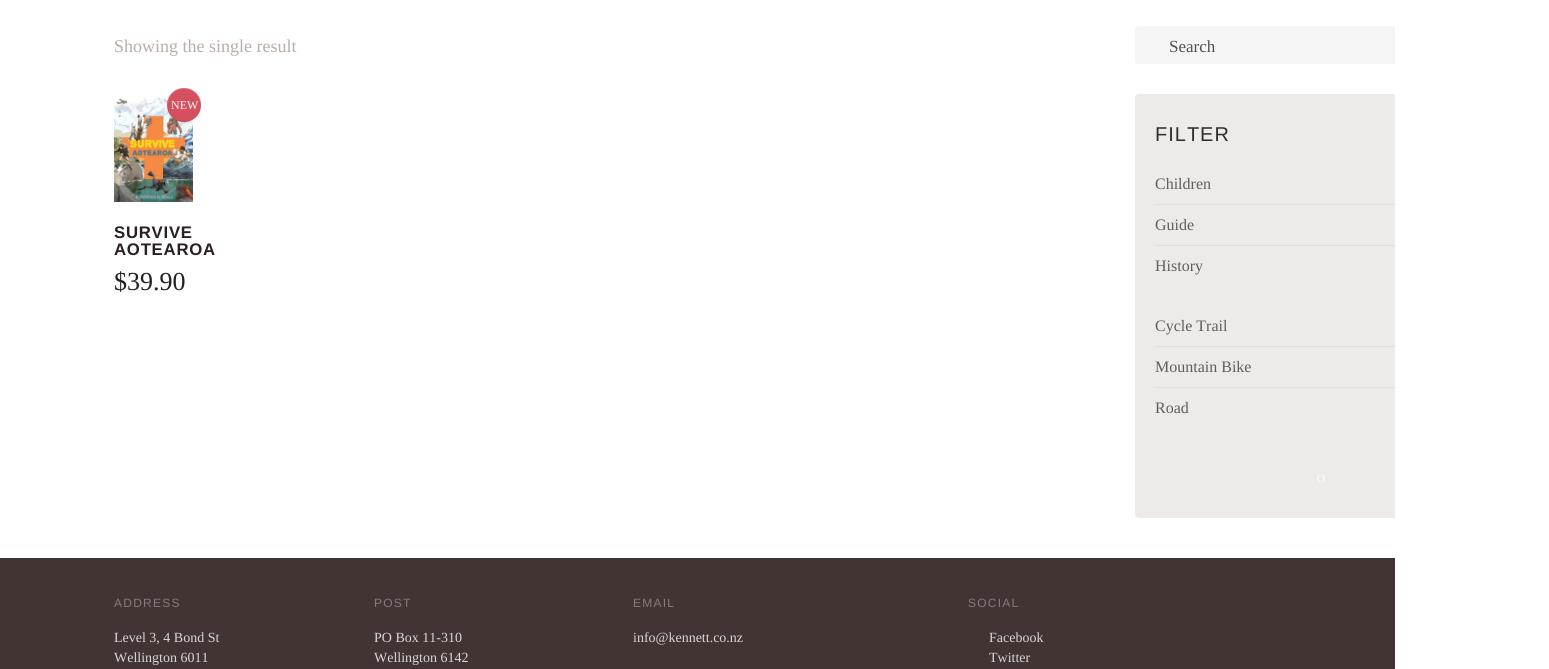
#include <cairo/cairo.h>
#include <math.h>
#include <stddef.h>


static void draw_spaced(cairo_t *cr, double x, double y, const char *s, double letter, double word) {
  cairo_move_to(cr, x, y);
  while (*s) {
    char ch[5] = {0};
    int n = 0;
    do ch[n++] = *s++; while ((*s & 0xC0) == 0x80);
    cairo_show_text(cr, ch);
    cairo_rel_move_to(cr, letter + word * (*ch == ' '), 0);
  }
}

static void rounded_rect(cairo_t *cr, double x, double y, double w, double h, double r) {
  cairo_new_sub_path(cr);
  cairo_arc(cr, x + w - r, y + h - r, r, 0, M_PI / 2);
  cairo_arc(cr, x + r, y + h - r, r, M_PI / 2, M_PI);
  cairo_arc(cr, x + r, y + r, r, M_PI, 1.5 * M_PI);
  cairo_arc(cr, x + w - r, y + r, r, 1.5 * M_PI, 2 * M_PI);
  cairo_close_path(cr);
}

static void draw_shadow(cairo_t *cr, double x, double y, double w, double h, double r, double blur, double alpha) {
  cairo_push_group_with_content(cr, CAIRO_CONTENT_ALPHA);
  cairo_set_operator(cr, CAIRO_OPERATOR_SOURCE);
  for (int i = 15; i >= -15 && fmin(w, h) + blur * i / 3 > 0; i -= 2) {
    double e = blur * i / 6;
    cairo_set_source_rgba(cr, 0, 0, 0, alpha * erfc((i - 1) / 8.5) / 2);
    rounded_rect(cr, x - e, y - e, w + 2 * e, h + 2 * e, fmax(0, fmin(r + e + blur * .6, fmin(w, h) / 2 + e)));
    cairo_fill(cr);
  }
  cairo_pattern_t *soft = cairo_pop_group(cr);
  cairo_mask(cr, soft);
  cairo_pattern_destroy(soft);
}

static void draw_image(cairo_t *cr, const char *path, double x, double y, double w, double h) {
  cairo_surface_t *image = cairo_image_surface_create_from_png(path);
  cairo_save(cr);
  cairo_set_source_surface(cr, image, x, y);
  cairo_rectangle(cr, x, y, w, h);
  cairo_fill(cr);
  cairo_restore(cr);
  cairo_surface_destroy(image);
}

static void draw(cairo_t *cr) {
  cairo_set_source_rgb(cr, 1, 1, 1);
  cairo_paint(cr);
  draw_image(cr, "images/1.png", 114, 97, 79, 105);
  cairo_set_source_rgb(cr, 0, 0, 0);
  draw_shadow(cr, 167, 89, 34, 34, 17, 1, 0.1);
  cairo_set_source_rgb(cr, 213 / 255.0, 79 / 255.0, 95 / 255.0);
  cairo_arc(cr, 184, 105, 17, 0, 2 * M_PI);
  cairo_fill(cr);
  cairo_set_source_rgba(cr, 0, 0, 0, 0.1);
  cairo_new_path(cr);
  cairo_move_to(cr, 168.5, 98.5);
  cairo_curve_to(cr, 166.5, 102.5, 166.5, 107.5, 168.5, 111.5);
  cairo_curve_to(cr, 169.5, 114.5, 172, 117.5, 174.5, 119);
  cairo_curve_to(cr, 188.5, 128.5, 206, 113.5, 199.5, 98.5);
  cairo_curve_to(cr, 202.5, 108.5, 197.5, 121, 184, 121);
  cairo_curve_to(cr, 170.5, 121, 165.5, 108.5, 168.5, 98.5);
  cairo_close_path(cr);
  cairo_fill(cr);
  cairo_set_source_rgba(cr, 1, 1, 1, 0.2);
  cairo_new_path(cr);
  cairo_move_to(cr, 184, 89);
  cairo_curve_to(cr, 197.5, 89, 202.5, 101.5, 199.5, 111.5);
  cairo_curve_to(cr, 206, 96.5, 188.5, 81.5, 174.5, 91);
  cairo_curve_to(cr, 172, 92.5, 169.5, 95.5, 168.5, 98.5);
  cairo_curve_to(cr, 166.5, 102.5, 166.5, 107.5, 168.5, 111.5);
  cairo_curve_to(cr, 165.5, 101.5, 170.5, 89, 184, 89);
  cairo_close_path(cr);
  cairo_fill(cr);
  cairo_set_source_rgb(cr, 245 / 255.0, 245 / 255.0, 245 / 255.0);
  cairo_new_path(cr);
  cairo_move_to(cr, 1138, 26);
  cairo_line_to(cr, 1395, 26);
  cairo_line_to(cr, 1395, 64);
  cairo_line_to(cr, 1138, 64);
  cairo_curve_to(cr, 1136.5, 64, 1135, 62.5, 1135, 61);
  cairo_line_to(cr, 1135, 29);
  cairo_curve_to(cr, 1135, 27.5, 1136.5, 26, 1138, 26);
  cairo_close_path(cr);
  cairo_fill(cr);
  cairo_set_source_rgb(cr, 237 / 255.0, 234 / 255.0, 232 / 255.0);
  cairo_new_path(cr);
  cairo_move_to(cr, 1139, 94);
  cairo_line_to(cr, 1395, 94);
  cairo_line_to(cr, 1395, 518);
  cairo_line_to(cr, 1139, 518);
  cairo_curve_to(cr, 1137, 518, 1135, 516, 1135, 514);
  cairo_line_to(cr, 1135, 98);
  cairo_curve_to(cr, 1135, 96, 1137, 94, 1139, 94);
  cairo_close_path(cr);
  cairo_fill(cr);
  cairo_set_source_rgb(cr, 225 / 255.0, 222 / 255.0, 220 / 255.0);
  cairo_rectangle(cr, 1155, 204, 240, 1);
  cairo_fill(cr);
  cairo_rectangle(cr, 1155, 245, 240, 1);
  cairo_fill(cr);
  cairo_rectangle(cr, 1155, 346, 240, 1);
  cairo_fill(cr);
  cairo_rectangle(cr, 1155, 387, 240, 1);
  cairo_fill(cr);
  cairo_set_source_rgb(cr, 65 / 255.0, 52 / 255.0, 51 / 255.0);
  cairo_rectangle(cr, 0, 558, 1395, 111);
  cairo_fill(cr);
  cairo_select_font_face(cr, "Liberation Serif", CAIRO_FONT_SLANT_NORMAL, CAIRO_FONT_WEIGHT_NORMAL);
  cairo_set_font_size(cr, 18);
  cairo_set_source_rgb(cr, 184 / 255.0, 173 / 255.0, 167 / 255.0);
  cairo_move_to(cr, 114, 52);
  cairo_show_text(cr, "Showing the single result");
  cairo_set_font_size(cr, 12);
  cairo_set_source_rgb(cr, 1, 1, 1);
  cairo_move_to(cr, 171, 109);
  cairo_show_text(cr, "NEW");
  cairo_select_font_face(cr, "Liberation Sans", CAIRO_FONT_SLANT_NORMAL, CAIRO_FONT_WEIGHT_BOLD);
  cairo_set_font_size(cr, 16.75);
  cairo_set_source_rgb(cr, 43 / 255.0, 30 / 255.0, 36 / 255.0);
  draw_spaced(cr, 114, 238, "SURVIVE", 0.75, 0);
  draw_spaced(cr, 114, 255, "AOTEAROA", 0.75, 0);
  cairo_select_font_face(cr, "Liberation Serif", CAIRO_FONT_SLANT_NORMAL, CAIRO_FONT_WEIGHT_NORMAL);
  cairo_set_font_size(cr, 26);
  cairo_set_source_rgb(cr, 34 / 255.0, 34 / 255.0, 34 / 255.0);
  cairo_move_to(cr, 114, 290);
  cairo_show_text(cr, "$39.90");
  cairo_set_font_size(cr, 17);
  cairo_set_source_rgb(cr, 79 / 255.0, 80 / 255.0, 79 / 255.0);
  cairo_move_to(cr, 1169, 52);
  cairo_show_text(cr, "Search");
  cairo_select_font_face(cr, "Liberation Sans", CAIRO_FONT_SLANT_NORMAL, CAIRO_FONT_WEIGHT_NORMAL);
  cairo_set_font_size(cr, 20);
  cairo_set_source_rgb(cr, 47 / 255.0, 47 / 255.0, 46 / 255.0);
  draw_spaced(cr, 1155, 141, "FILTER", 1, 0);
  cairo_select_font_face(cr, "Liberation Serif", CAIRO_FONT_SLANT_NORMAL, CAIRO_FONT_WEIGHT_NORMAL);
  cairo_set_font_size(cr, 16);
  cairo_set_source_rgb(cr, 95 / 255.0, 94 / 255.0, 93 / 255.0);
  cairo_move_to(cr, 1155, 189);
  cairo_show_text(cr, "Children");
  cairo_move_to(cr, 1155, 230);
  cairo_show_text(cr, "Guide");
  cairo_move_to(cr, 1155, 271);
  cairo_show_text(cr, "History");
  cairo_move_to(cr, 1155, 331);
  cairo_show_text(cr, "Cycle Trail");
  cairo_move_to(cr, 1155, 372);
  cairo_show_text(cr, "Mountain Bike");
  cairo_move_to(cr, 1155, 413);
  cairo_show_text(cr, "Road");
  cairo_set_font_size(cr, 11);
  cairo_set_source_rgb(cr, 1, 1, 1);
  draw_spaced(cr, 1317, 482, "O", 1, 0);
  cairo_select_font_face(cr, "Liberation Sans", CAIRO_FONT_SLANT_NORMAL, CAIRO_FONT_WEIGHT_NORMAL);
  cairo_set_font_size(cr, 12);
  cairo_set_source_rgb(cr, 132 / 255.0, 123 / 255.0, 123 / 255.0);
  draw_spaced(cr, 114, 607, "ADDRESS", 1.25, 0);
  cairo_select_font_face(cr, "Liberation Serif", CAIRO_FONT_SLANT_NORMAL, CAIRO_FONT_WEIGHT_NORMAL);
  cairo_set_font_size(cr, 14);
  cairo_set_source_rgb(cr, 217 / 255.0, 214 / 255.0, 214 / 255.0);
  cairo_move_to(cr, 114, 642);
  cairo_show_text(cr, "Level 3, 4 Bond St");
  cairo_move_to(cr, 114, 662);
  cairo_show_text(cr, "Wellington 6011");
  cairo_select_font_face(cr, "Liberation Sans", CAIRO_FONT_SLANT_NORMAL, CAIRO_FONT_WEIGHT_NORMAL);
  cairo_set_font_size(cr, 12);
  cairo_set_source_rgb(cr, 132 / 255.0, 123 / 255.0, 123 / 255.0);
  draw_spaced(cr, 374, 607, "POST", 1.25, 0);
  cairo_select_font_face(cr, "Liberation Serif", CAIRO_FONT_SLANT_NORMAL, CAIRO_FONT_WEIGHT_NORMAL);
  cairo_set_font_size(cr, 14);
  cairo_set_source_rgb(cr, 217 / 255.0, 214 / 255.0, 214 / 255.0);
  cairo_move_to(cr, 374, 642);
  cairo_show_text(cr, "PO Box 11-310");
  cairo_move_to(cr, 374, 662);
  cairo_show_text(cr, "Wellington 6142");
  cairo_select_font_face(cr, "Liberation Sans", CAIRO_FONT_SLANT_NORMAL, CAIRO_FONT_WEIGHT_NORMAL);
  cairo_set_font_size(cr, 12);
  cairo_set_source_rgb(cr, 132 / 255.0, 123 / 255.0, 123 / 255.0);
  draw_spaced(cr, 633, 607, "EMAIL", 1.25, 0);
  cairo_select_font_face(cr, "Liberation Serif", CAIRO_FONT_SLANT_NORMAL, CAIRO_FONT_WEIGHT_NORMAL);
  cairo_set_font_size(cr, 14);
  cairo_set_source_rgb(cr, 217 / 255.0, 214 / 255.0, 214 / 255.0);
  cairo_move_to(cr, 633, 642);
  cairo_show_text(cr, "info@kennett.co.nz");
  cairo_select_font_face(cr, "Liberation Sans", CAIRO_FONT_SLANT_NORMAL, CAIRO_FONT_WEIGHT_NORMAL);
  cairo_set_font_size(cr, 12);
  cairo_set_source_rgb(cr, 132 / 255.0, 123 / 255.0, 123 / 255.0);
  draw_spaced(cr, 968, 607, "SOCIAL", 1.25, 0);
  cairo_select_font_face(cr, "Liberation Serif", CAIRO_FONT_SLANT_NORMAL, CAIRO_FONT_WEIGHT_NORMAL);
  cairo_set_font_size(cr, 14);
  cairo_set_source_rgb(cr, 217 / 255.0, 214 / 255.0, 214 / 255.0);
  cairo_move_to(cr, 989, 642);
  cairo_show_text(cr, "Facebook");
  cairo_move_to(cr, 989, 662);
  cairo_show_text(cr, "Twitter");
}

int main(void) {
  cairo_surface_t *surface = cairo_image_surface_create(CAIRO_FORMAT_RGB24, 1549, 669);
  cairo_t *cr = cairo_create(surface);
  cairo_font_options_t *options = cairo_font_options_create();
  cairo_font_options_set_hint_metrics(options, CAIRO_HINT_METRICS_OFF);
  cairo_font_options_set_hint_style(options, CAIRO_HINT_STYLE_NONE);
  cairo_set_font_options(cr, options);
  cairo_set_miter_limit(cr, 4);
  draw(cr);
  cairo_surface_write_to_png(surface, "out.png");
  cairo_font_options_destroy(options);
  cairo_destroy(cr);
  cairo_surface_destroy(surface);
  return 0;
}
